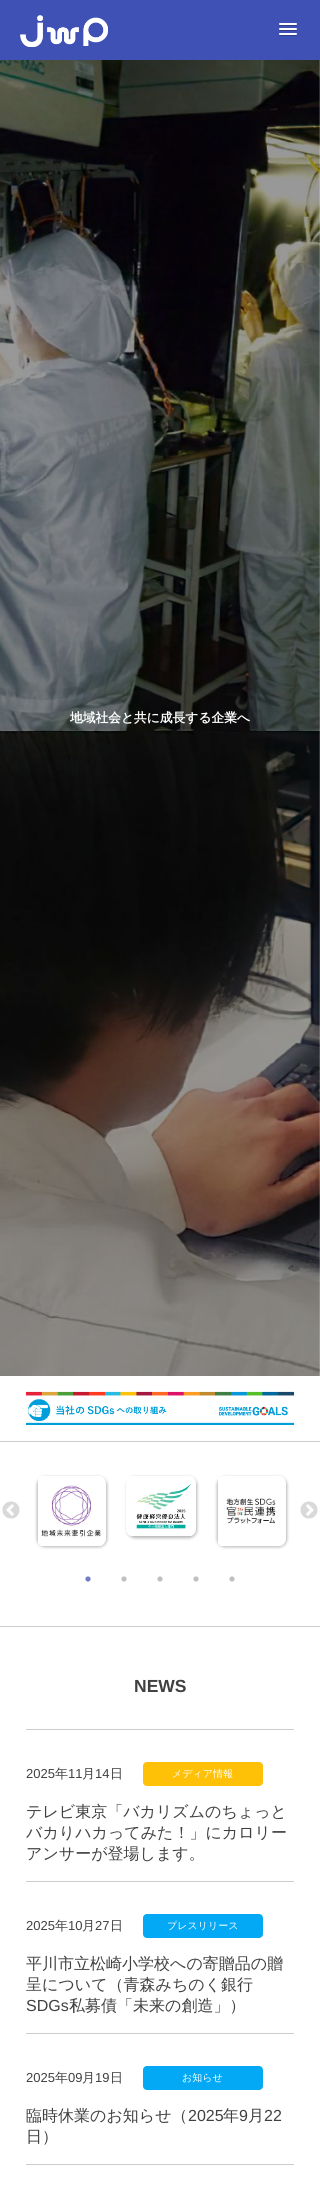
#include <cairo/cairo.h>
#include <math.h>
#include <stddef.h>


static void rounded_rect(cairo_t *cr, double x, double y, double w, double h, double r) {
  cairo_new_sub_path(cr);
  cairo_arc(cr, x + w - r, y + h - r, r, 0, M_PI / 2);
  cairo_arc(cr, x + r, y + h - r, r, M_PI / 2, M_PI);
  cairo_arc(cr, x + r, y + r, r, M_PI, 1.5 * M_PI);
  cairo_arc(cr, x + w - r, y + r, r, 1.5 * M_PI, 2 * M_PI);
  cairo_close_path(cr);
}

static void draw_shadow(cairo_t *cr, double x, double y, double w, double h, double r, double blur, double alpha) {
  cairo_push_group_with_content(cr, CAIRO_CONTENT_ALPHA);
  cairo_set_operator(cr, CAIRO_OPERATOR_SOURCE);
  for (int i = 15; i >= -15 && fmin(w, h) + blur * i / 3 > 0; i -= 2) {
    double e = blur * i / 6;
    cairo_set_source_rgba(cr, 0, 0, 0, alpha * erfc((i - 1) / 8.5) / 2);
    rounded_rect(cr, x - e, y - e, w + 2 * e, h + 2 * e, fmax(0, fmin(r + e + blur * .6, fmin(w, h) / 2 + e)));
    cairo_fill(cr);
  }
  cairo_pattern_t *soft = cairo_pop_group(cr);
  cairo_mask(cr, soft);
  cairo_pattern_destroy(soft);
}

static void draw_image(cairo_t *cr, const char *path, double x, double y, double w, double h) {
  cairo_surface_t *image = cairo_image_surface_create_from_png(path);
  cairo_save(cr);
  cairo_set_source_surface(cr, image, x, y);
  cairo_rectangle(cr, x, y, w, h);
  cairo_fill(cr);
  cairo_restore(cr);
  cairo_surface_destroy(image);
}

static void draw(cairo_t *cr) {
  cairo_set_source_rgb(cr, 1, 1, 1);
  cairo_paint(cr);
  cairo_set_source_rgb(cr, 63 / 255.0, 81 / 255.0, 181 / 255.0);
  cairo_rectangle(cr, 0, 0, 320, 60);
  cairo_fill(cr);
  draw_image(cr, "images/1.png", 20, 15, 88, 32);
  cairo_set_source_rgb(cr, 47 / 255.0, 61 / 255.0, 136 / 255.0);
  cairo_new_path(cr);
  cairo_move_to(cr, 279, 24.5);
  cairo_curve_to(cr, 278, 26.5, 282.5, 26, 282.5, 26);
  cairo_line_to(cr, 293.5, 26);
  cairo_curve_to(cr, 293.5, 26, 298, 26.5, 297, 24.5);
  cairo_curve_to(cr, 296, 25.5, 289.5, 25, 288, 25);
  cairo_curve_to(cr, 286.5, 25, 280, 25.5, 279, 24.5);
  cairo_close_path(cr);
  cairo_fill(cr);
  cairo_set_source_rgb(cr, 1, 1, 1);
  rounded_rect(cr, 279, 23, 18, 2, 1);
  cairo_fill(cr);
  cairo_set_source_rgb(cr, 47 / 255.0, 61 / 255.0, 136 / 255.0);
  cairo_new_path(cr);
  cairo_move_to(cr, 279, 29.5);
  cairo_curve_to(cr, 278, 31.5, 282.5, 31, 282.5, 31);
  cairo_line_to(cr, 293.5, 31);
  cairo_curve_to(cr, 293.5, 31, 298, 31.5, 297, 29.5);
  cairo_curve_to(cr, 296, 30.5, 289.5, 30, 288, 30);
  cairo_curve_to(cr, 286.5, 30, 280, 30.5, 279, 29.5);
  cairo_close_path(cr);
  cairo_fill(cr);
  cairo_set_source_rgb(cr, 1, 1, 1);
  rounded_rect(cr, 279, 28, 18, 2, 1);
  cairo_fill(cr);
  cairo_set_source_rgb(cr, 47 / 255.0, 61 / 255.0, 136 / 255.0);
  cairo_new_path(cr);
  cairo_move_to(cr, 279, 34.5);
  cairo_curve_to(cr, 278, 36.5, 282.5, 36, 282.5, 36);
  cairo_line_to(cr, 293.5, 36);
  cairo_curve_to(cr, 293.5, 36, 298, 36.5, 297, 34.5);
  cairo_curve_to(cr, 296, 35.5, 289.5, 35, 288, 35);
  cairo_curve_to(cr, 286.5, 35, 280, 35.5, 279, 34.5);
  cairo_close_path(cr);
  cairo_fill(cr);
  cairo_set_source_rgb(cr, 1, 1, 1);
  rounded_rect(cr, 279, 33, 18, 2, 1);
  cairo_fill(cr);
  draw_image(cr, "images/2.png", 0, 60, 320, 1316);
  cairo_set_source_rgb(cr, 204 / 255.0, 204 / 255.0, 204 / 255.0);
  cairo_rectangle(cr, 0, 1441, 320, 1);
  cairo_fill(cr);
  draw_image(cr, "images/3.png", 25, 1391, 270, 34);
  draw_image(cr, "images/4.png", 2, 1501, 18, 18);
  cairo_set_source_rgb(cr, 0, 0, 0);
  draw_shadow(cr, 37, 1477, 70, 70, 8, 1.5, 0.3);
  draw_image(cr, "images/5.png", 38, 1476, 68, 70);
  draw_shadow(cr, 127, 1477, 70, 61, 8, 1.5, 0.3);
  draw_image(cr, "images/6.png", 126, 1476, 70, 60);
  draw_shadow(cr, 217, 1477, 70, 70, 8, 1.5, 0.3);
  draw_image(cr, "images/7.png", 218, 1476, 68, 70);
  draw_image(cr, "images/8.png", 300, 1501, 18, 18);
  draw_image(cr, "images/9.png", 85, 1576, 6, 6);
  draw_image(cr, "images/10.png", 121, 1576, 6, 6);
  draw_image(cr, "images/10.png", 157, 1576, 6, 6);
  draw_image(cr, "images/10.png", 193, 1576, 6, 6);
  draw_image(cr, "images/10.png", 229, 1576, 6, 6);
  cairo_set_source_rgb(cr, 204 / 255.0, 204 / 255.0, 204 / 255.0);
  cairo_rectangle(cr, 0, 1626, 320, 1);
  cairo_fill(cr);
  cairo_rectangle(cr, 26, 1729, 268, 1);
  cairo_fill(cr);
  cairo_rectangle(cr, 26, 1881, 268, 1);
  cairo_fill(cr);
  cairo_set_source_rgb(cr, 1, 193 / 255.0, 7 / 255.0);
  rounded_rect(cr, 143, 1762, 120, 24, 4);
  cairo_fill(cr);
  cairo_set_source_rgb(cr, 204 / 255.0, 204 / 255.0, 204 / 255.0);
  cairo_rectangle(cr, 26, 2033, 268, 1);
  cairo_fill(cr);
  cairo_set_source_rgb(cr, 3 / 255.0, 169 / 255.0, 244 / 255.0);
  rounded_rect(cr, 143, 1914, 120, 24, 4);
  cairo_fill(cr);
  cairo_set_source_rgb(cr, 204 / 255.0, 204 / 255.0, 204 / 255.0);
  cairo_rectangle(cr, 26, 2164, 268, 1);
  cairo_fill(cr);
  cairo_set_source_rgb(cr, 3 / 255.0, 169 / 255.0, 244 / 255.0);
  rounded_rect(cr, 143, 2066, 120, 24, 4);
  cairo_fill(cr);
  cairo_select_font_face(cr, "WenQuanYi Zen Hei", CAIRO_FONT_SLANT_NORMAL, CAIRO_FONT_WEIGHT_BOLD);
  cairo_set_font_size(cr, 12.75);
  cairo_set_source_rgb(cr, 1, 1, 1);
  cairo_move_to(cr, 70, 722);
  cairo_show_text(cr, "地域社会と共に成長する企業へ");
  cairo_select_font_face(cr, "Liberation Sans", CAIRO_FONT_SLANT_NORMAL, CAIRO_FONT_WEIGHT_BOLD);
  cairo_set_font_size(cr, 17.5);
  cairo_set_source_rgb(cr, 64 / 255.0, 64 / 255.0, 64 / 255.0);
  cairo_move_to(cr, 134, 1692);
  cairo_show_text(cr, "NEWS");
  cairo_select_font_face(cr, "Liberation Sans", CAIRO_FONT_SLANT_NORMAL, CAIRO_FONT_WEIGHT_NORMAL);
  cairo_set_font_size(cr, 13);
  cairo_move_to(cr, 26, 1778);
  cairo_show_text(cr, "2025");
  cairo_select_font_face(cr, "WenQuanYi Zen Hei Medium", CAIRO_FONT_SLANT_NORMAL, CAIRO_FONT_WEIGHT_NORMAL);
  cairo_move_to(cr, 55, 1778);
  cairo_show_text(cr, "年");
  cairo_select_font_face(cr, "Liberation Sans", CAIRO_FONT_SLANT_NORMAL, CAIRO_FONT_WEIGHT_NORMAL);
  cairo_move_to(cr, 68, 1778);
  cairo_show_text(cr, "11");
  cairo_select_font_face(cr, "WenQuanYi Zen Hei Medium", CAIRO_FONT_SLANT_NORMAL, CAIRO_FONT_WEIGHT_NORMAL);
  cairo_move_to(cr, 82, 1778);
  cairo_show_text(cr, "月");
  cairo_select_font_face(cr, "Liberation Sans", CAIRO_FONT_SLANT_NORMAL, CAIRO_FONT_WEIGHT_NORMAL);
  cairo_move_to(cr, 95, 1778);
  cairo_show_text(cr, "14");
  cairo_select_font_face(cr, "WenQuanYi Zen Hei Medium", CAIRO_FONT_SLANT_NORMAL, CAIRO_FONT_WEIGHT_NORMAL);
  cairo_move_to(cr, 110, 1778);
  cairo_show_text(cr, "日");
  cairo_set_font_size(cr, 10);
  cairo_set_source_rgb(cr, 1, 1, 1);
  cairo_move_to(cr, 172, 1777);
  cairo_show_text(cr, "メディア情報");
  cairo_set_font_size(cr, 16);
  cairo_set_source_rgb(cr, 64 / 255.0, 64 / 255.0, 64 / 255.0);
  cairo_move_to(cr, 26, 1817);
  cairo_show_text(cr, "テレビ東京「バカリズムのちょっと");
  cairo_move_to(cr, 26, 1838);
  cairo_show_text(cr, "バカりハカってみた！」にカロリー");
  cairo_move_to(cr, 26, 1859);
  cairo_show_text(cr, "アンサーが登場します。");
  cairo_select_font_face(cr, "Liberation Sans", CAIRO_FONT_SLANT_NORMAL, CAIRO_FONT_WEIGHT_NORMAL);
  cairo_set_font_size(cr, 13);
  cairo_move_to(cr, 26, 1930);
  cairo_show_text(cr, "2025");
  cairo_select_font_face(cr, "WenQuanYi Zen Hei Medium", CAIRO_FONT_SLANT_NORMAL, CAIRO_FONT_WEIGHT_NORMAL);
  cairo_move_to(cr, 55, 1930);
  cairo_show_text(cr, "年");
  cairo_select_font_face(cr, "Liberation Sans", CAIRO_FONT_SLANT_NORMAL, CAIRO_FONT_WEIGHT_NORMAL);
  cairo_move_to(cr, 68, 1930);
  cairo_show_text(cr, "10");
  cairo_select_font_face(cr, "WenQuanYi Zen Hei Medium", CAIRO_FONT_SLANT_NORMAL, CAIRO_FONT_WEIGHT_NORMAL);
  cairo_move_to(cr, 82, 1930);
  cairo_show_text(cr, "月");
  cairo_select_font_face(cr, "Liberation Sans", CAIRO_FONT_SLANT_NORMAL, CAIRO_FONT_WEIGHT_NORMAL);
  cairo_move_to(cr, 95, 1930);
  cairo_show_text(cr, "27");
  cairo_select_font_face(cr, "WenQuanYi Zen Hei Medium", CAIRO_FONT_SLANT_NORMAL, CAIRO_FONT_WEIGHT_NORMAL);
  cairo_move_to(cr, 110, 1930);
  cairo_show_text(cr, "日");
  cairo_set_font_size(cr, 10);
  cairo_set_source_rgb(cr, 1, 1, 1);
  cairo_move_to(cr, 167, 1929);
  cairo_show_text(cr, "プレスリリース");
  cairo_set_font_size(cr, 16);
  cairo_set_source_rgb(cr, 64 / 255.0, 64 / 255.0, 64 / 255.0);
  cairo_move_to(cr, 26, 1969);
  cairo_show_text(cr, "平川市立松崎小学校への寄贈品の贈");
  cairo_move_to(cr, 26, 1990);
  cairo_show_text(cr, "呈について（青森みちのく銀行");
  cairo_select_font_face(cr, "Liberation Sans", CAIRO_FONT_SLANT_NORMAL, CAIRO_FONT_WEIGHT_NORMAL);
  cairo_move_to(cr, 26, 2011);
  cairo_show_text(cr, "SDGs");
  cairo_select_font_face(cr, "WenQuanYi Zen Hei Medium", CAIRO_FONT_SLANT_NORMAL, CAIRO_FONT_WEIGHT_NORMAL);
  cairo_move_to(cr, 69, 2011);
  cairo_show_text(cr, "私募債「未来の創造」）");
  cairo_select_font_face(cr, "Liberation Sans", CAIRO_FONT_SLANT_NORMAL, CAIRO_FONT_WEIGHT_NORMAL);
  cairo_set_font_size(cr, 13);
  cairo_move_to(cr, 26, 2082);
  cairo_show_text(cr, "2025");
  cairo_select_font_face(cr, "WenQuanYi Zen Hei Medium", CAIRO_FONT_SLANT_NORMAL, CAIRO_FONT_WEIGHT_NORMAL);
  cairo_move_to(cr, 55, 2082);
  cairo_show_text(cr, "年");
  cairo_select_font_face(cr, "Liberation Sans", CAIRO_FONT_SLANT_NORMAL, CAIRO_FONT_WEIGHT_NORMAL);
  cairo_move_to(cr, 68, 2082);
  cairo_show_text(cr, "09");
  cairo_select_font_face(cr, "WenQuanYi Zen Hei Medium", CAIRO_FONT_SLANT_NORMAL, CAIRO_FONT_WEIGHT_NORMAL);
  cairo_move_to(cr, 82, 2082);
  cairo_show_text(cr, "月");
  cairo_select_font_face(cr, "Liberation Sans", CAIRO_FONT_SLANT_NORMAL, CAIRO_FONT_WEIGHT_NORMAL);
  cairo_move_to(cr, 95, 2082);
  cairo_show_text(cr, "19");
  cairo_select_font_face(cr, "WenQuanYi Zen Hei Medium", CAIRO_FONT_SLANT_NORMAL, CAIRO_FONT_WEIGHT_NORMAL);
  cairo_move_to(cr, 110, 2082);
  cairo_show_text(cr, "日");
  cairo_set_font_size(cr, 10);
  cairo_set_source_rgb(cr, 1, 1, 1);
  cairo_move_to(cr, 182, 2081);
  cairo_show_text(cr, "お知らせ");
  cairo_set_font_size(cr, 16);
  cairo_set_source_rgb(cr, 64 / 255.0, 64 / 255.0, 64 / 255.0);
  cairo_move_to(cr, 26, 2121);
  cairo_show_text(cr, "臨時休業のお知らせ（");
  cairo_select_font_face(cr, "Liberation Sans", CAIRO_FONT_SLANT_NORMAL, CAIRO_FONT_WEIGHT_NORMAL);
  cairo_move_to(cr, 188, 2121);
  cairo_show_text(cr, "2025");
  cairo_select_font_face(cr, "WenQuanYi Zen Hei Medium", CAIRO_FONT_SLANT_NORMAL, CAIRO_FONT_WEIGHT_NORMAL);
  cairo_move_to(cr, 223, 2121);
  cairo_show_text(cr, "年");
  cairo_select_font_face(cr, "Liberation Sans", CAIRO_FONT_SLANT_NORMAL, CAIRO_FONT_WEIGHT_NORMAL);
  cairo_move_to(cr, 239, 2121);
  cairo_show_text(cr, "9");
  cairo_select_font_face(cr, "WenQuanYi Zen Hei Medium", CAIRO_FONT_SLANT_NORMAL, CAIRO_FONT_WEIGHT_NORMAL);
  cairo_move_to(cr, 248, 2121);
  cairo_show_text(cr, "月");
  cairo_select_font_face(cr, "Liberation Sans", CAIRO_FONT_SLANT_NORMAL, CAIRO_FONT_WEIGHT_NORMAL);
  cairo_move_to(cr, 264, 2121);
  cairo_show_text(cr, "22");
  cairo_select_font_face(cr, "WenQuanYi Zen Hei Medium", CAIRO_FONT_SLANT_NORMAL, CAIRO_FONT_WEIGHT_NORMAL);
  cairo_move_to(cr, 26, 2142);
  cairo_show_text(cr, "日）");
}

int main(void) {
  cairo_surface_t *surface = cairo_image_surface_create(CAIRO_FORMAT_RGB24, 320, 2193);
  cairo_t *cr = cairo_create(surface);
  cairo_font_options_t *options = cairo_font_options_create();
  cairo_font_options_set_hint_metrics(options, CAIRO_HINT_METRICS_OFF);
  cairo_font_options_set_hint_style(options, CAIRO_HINT_STYLE_NONE);
  cairo_set_font_options(cr, options);
  cairo_set_miter_limit(cr, 4);
  draw(cr);
  cairo_surface_write_to_png(surface, "out.png");
  cairo_font_options_destroy(options);
  cairo_destroy(cr);
  cairo_surface_destroy(surface);
  return 0;
}
